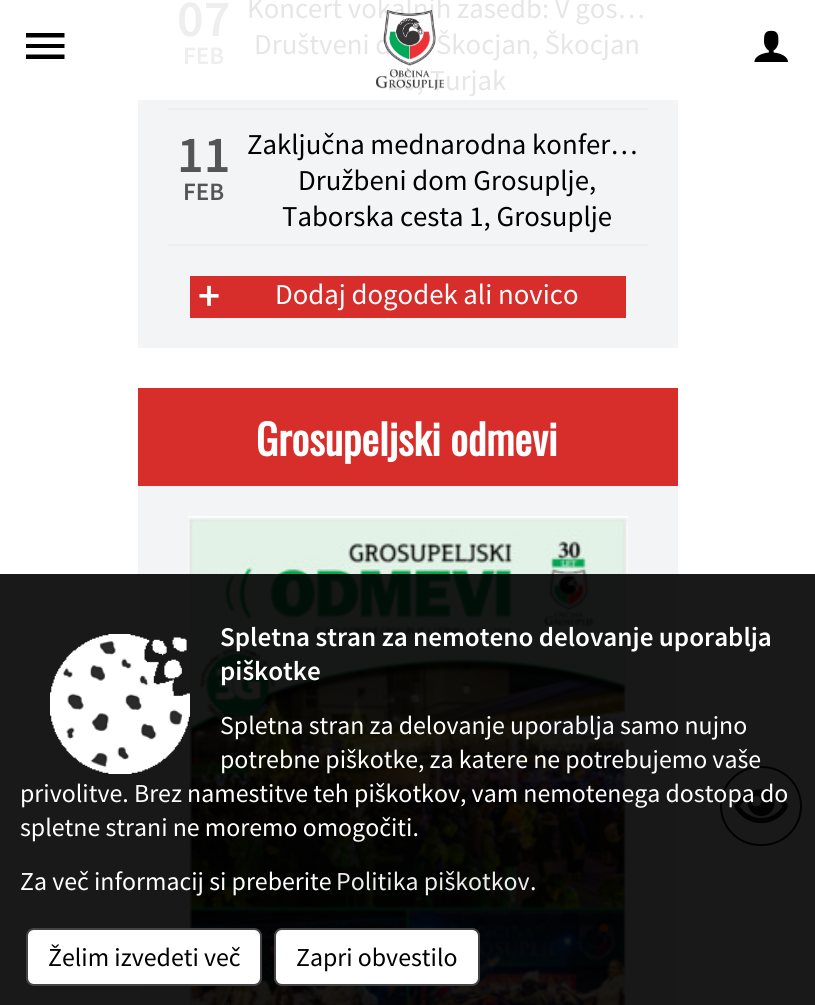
#include <cairo/cairo.h>
#include <math.h>
#include <stddef.h>


static void rounded_rect(cairo_t *cr, double x, double y, double w, double h, double r) {
  cairo_new_sub_path(cr);
  cairo_arc(cr, x + w - r, y + h - r, r, 0, M_PI / 2);
  cairo_arc(cr, x + r, y + h - r, r, M_PI / 2, M_PI);
  cairo_arc(cr, x + r, y + r, r, M_PI, 1.5 * M_PI);
  cairo_arc(cr, x + w - r, y + r, r, 1.5 * M_PI, 2 * M_PI);
  cairo_close_path(cr);
}

static void draw_image(cairo_t *cr, const char *path, double x, double y, double w, double h) {
  cairo_surface_t *image = cairo_image_surface_create_from_png(path);
  cairo_save(cr);
  cairo_set_source_surface(cr, image, x, y);
  cairo_rectangle(cr, x, y, w, h);
  cairo_fill(cr);
  cairo_restore(cr);
  cairo_surface_destroy(image);
}

static void draw(cairo_t *cr) {
  cairo_set_source_rgb(cr, 1, 1, 1);
  cairo_paint(cr);
  cairo_set_source_rgb(cr, 243 / 255.0, 244 / 255.0, 245 / 255.0);
  cairo_rectangle(cr, 138, 100, 540, 248);
  cairo_fill(cr);
  cairo_set_source_rgb(cr, 238 / 255.0, 238 / 255.0, 238 / 255.0);
  cairo_rectangle(cr, 168, 108, 480, 2);
  cairo_fill(cr);
  cairo_rectangle(cr, 168, 244, 480, 2);
  cairo_fill(cr);
  cairo_set_source_rgb(cr, 215 / 255.0, 45 / 255.0, 43 / 255.0);
  cairo_rectangle(cr, 190, 276, 436, 42);
  cairo_fill(cr);
  cairo_set_source_rgb(cr, 243 / 255.0, 244 / 255.0, 245 / 255.0);
  cairo_rectangle(cr, 138, 486, 540, 519);
  cairo_fill(cr);
  cairo_set_source_rgb(cr, 215 / 255.0, 45 / 255.0, 43 / 255.0);
  cairo_rectangle(cr, 138, 388, 540, 98);
  cairo_fill(cr);
  draw_image(cr, "images/1.png", 188, 516, 440, 489);
  cairo_set_source_rgb(cr, 0, 0, 0);
  cairo_new_path(cr);
  cairo_move_to(cr, 26, 33);
  cairo_line_to(cr, 64.5, 33);
  cairo_line_to(cr, 64.5, 37.5);
  cairo_line_to(cr, 26, 37.5);
  cairo_close_path(cr);
  cairo_move_to(cr, 26, 48);
  cairo_line_to(cr, 26, 44);
  cairo_line_to(cr, 64.5, 44);
  cairo_line_to(cr, 64.5, 48);
  cairo_close_path(cr);
  cairo_move_to(cr, 26, 59);
  cairo_line_to(cr, 26, 54.5);
  cairo_line_to(cr, 64.5, 54.5);
  cairo_line_to(cr, 64.5, 59);
  cairo_close_path(cr);
  cairo_fill(cr);
  draw_image(cr, "images/3.png", 754, 30, 34, 32);
  rounded_rect(cr, 721, 767, 80, 78, 39);
  cairo_set_source_rgb(cr, 17 / 255.0, 17 / 255.0, 17 / 255.0);
  cairo_stroke(cr);
  draw_image(cr, "images/5.png", 734, 789, 55, 35);
  cairo_set_source_rgba(cr, 0, 0, 0, 0.9);
  cairo_rectangle(cr, 0, 574, 815, 431);
  cairo_fill(cr);
  draw_image(cr, "images/4.png", 50, 634, 140, 140);
  cairo_set_source_rgb(cr, 1, 1, 1);
  rounded_rect(cr, 27, 929, 234, 56, 7);
  cairo_fill_preserve(cr);
  cairo_set_source_rgb(cr, 68 / 255.0, 68 / 255.0, 68 / 255.0);
  cairo_stroke(cr);
  cairo_set_source_rgb(cr, 1, 1, 1);
  rounded_rect(cr, 275, 929, 204, 56, 7);
  cairo_fill_preserve(cr);
  cairo_set_source_rgb(cr, 68 / 255.0, 68 / 255.0, 68 / 255.0);
  cairo_stroke(cr);
  cairo_select_font_face(cr, "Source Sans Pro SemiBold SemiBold", CAIRO_FONT_SLANT_NORMAL, CAIRO_FONT_WEIGHT_NORMAL);
  cairo_set_font_size(cr, 52);
  cairo_set_source_rgb(cr, 238 / 255.0, 238 / 255.0, 238 / 255.0);
  cairo_move_to(cr, 177, 36);
  cairo_show_text(cr, "07");
  cairo_set_font_size(cr, 25);
  cairo_move_to(cr, 183, 64);
  cairo_show_text(cr, "FEB");
  cairo_select_font_face(cr, "Source Sans Pro", CAIRO_FONT_SLANT_NORMAL, CAIRO_FONT_WEIGHT_NORMAL);
  cairo_set_font_size(cr, 28.75);
  cairo_set_source_rgb(cr, 230 / 255.0, 230 / 255.0, 230 / 255.0);
  cairo_move_to(cr, 247, 18);
  cairo_show_text(cr, "Koncert vokalnih zasedb: V gos…");
  cairo_move_to(cr, 254, 54);
  cairo_show_text(cr, "Društveni d");
  cairo_move_to(cr, 436, 54);
  cairo_show_text(cr, "Škocjan, Škocjan");
  cairo_move_to(cr, 388, 90);
  cairo_show_text(cr, "20, Turjak");
  cairo_select_font_face(cr, "Source Sans Pro SemiBold SemiBold", CAIRO_FONT_SLANT_NORMAL, CAIRO_FONT_WEIGHT_NORMAL);
  cairo_set_font_size(cr, 52);
  cairo_set_source_rgb(cr, 85 / 255.0, 85 / 255.0, 85 / 255.0);
  cairo_move_to(cr, 177, 172);
  cairo_show_text(cr, "11");
  cairo_set_font_size(cr, 25);
  cairo_move_to(cr, 183, 200);
  cairo_show_text(cr, "FEB");
  cairo_select_font_face(cr, "Source Sans Pro", CAIRO_FONT_SLANT_NORMAL, CAIRO_FONT_WEIGHT_NORMAL);
  cairo_set_font_size(cr, 28.75);
  cairo_set_source_rgb(cr, 0, 0, 0);
  cairo_move_to(cr, 247, 154);
  cairo_show_text(cr, "Zaključna mednarodna konfer…");
  cairo_move_to(cr, 298, 190);
  cairo_show_text(cr, "Družbeni dom Grosuplje,");
  cairo_move_to(cr, 282, 226);
  cairo_show_text(cr, "Taborska cesta 1, Grosuplje");
  cairo_select_font_face(cr, "Source Sans Pro SemiBold SemiBold", CAIRO_FONT_SLANT_NORMAL, CAIRO_FONT_WEIGHT_NORMAL);
  cairo_set_font_size(cr, 43);
  cairo_set_source_rgb(cr, 1, 1, 1);
  cairo_move_to(cr, 198, 310);
  cairo_show_text(cr, "+");
  cairo_select_font_face(cr, "Source Sans Pro", CAIRO_FONT_SLANT_NORMAL, CAIRO_FONT_WEIGHT_NORMAL);
  cairo_set_font_size(cr, 28.75);
  cairo_move_to(cr, 275, 304);
  cairo_show_text(cr, "Dodaj dogodek ali novico");
  cairo_select_font_face(cr, "Oswald", CAIRO_FONT_SLANT_NORMAL, CAIRO_FONT_WEIGHT_BOLD);
  cairo_set_font_size(cr, 41.5);
  cairo_move_to(cr, 256, 456);
  cairo_show_text(cr, "Grosupeljski odmevi");
  draw_image(cr, "images/2.png", 376, 10, 68, 80);
  cairo_select_font_face(cr, "Source Sans Pro SemiBold SemiBold", CAIRO_FONT_SLANT_NORMAL, CAIRO_FONT_WEIGHT_NORMAL);
  cairo_set_font_size(cr, 27.1);
  cairo_move_to(cr, 220, 646);
  cairo_show_text(cr, "Spletna stran za nemoteno delovanje uporablja");
  cairo_move_to(cr, 220, 680);
  cairo_show_text(cr, "piškotke");
  cairo_select_font_face(cr, "Source Sans Pro", CAIRO_FONT_SLANT_NORMAL, CAIRO_FONT_WEIGHT_NORMAL);
  cairo_set_font_size(cr, 25.85);
  cairo_move_to(cr, 220, 734);
  cairo_show_text(cr, "Spletna stran za delovanje uporablja samo nujno");
  cairo_move_to(cr, 220, 768);
  cairo_show_text(cr, "potrebne piškotke, za katere ne potrebujemo vaše");
  cairo_move_to(cr, 20, 802);
  cairo_show_text(cr, "privolitve. Brez namestitve teh piškotkov, vam nemotenega dostopa do");
  cairo_move_to(cr, 20, 836);
  cairo_show_text(cr, "spletne strani ne moremo omogočiti.");
  cairo_move_to(cr, 20, 890);
  cairo_show_text(cr, "Za več informacij si preberite");
  cairo_set_source_rgb(cr, 238 / 255.0, 238 / 255.0, 238 / 255.0);
  cairo_move_to(cr, 336, 890);
  cairo_show_text(cr, "Politika piškotkov");
  cairo_set_source_rgb(cr, 1, 1, 1);
  cairo_move_to(cr, 530, 890);
  cairo_show_text(cr, ".");
  cairo_set_source_rgb(cr, 0, 0, 0);
  cairo_move_to(cr, 48, 966);
  cairo_show_text(cr, "Želim izvedeti več");
  cairo_move_to(cr, 296, 966);
  cairo_show_text(cr, "Zapri obvestilo");
}

int main(void) {
  cairo_surface_t *surface = cairo_image_surface_create(CAIRO_FORMAT_RGB24, 815, 1005);
  cairo_t *cr = cairo_create(surface);
  cairo_font_options_t *options = cairo_font_options_create();
  cairo_font_options_set_hint_metrics(options, CAIRO_HINT_METRICS_OFF);
  cairo_font_options_set_hint_style(options, CAIRO_HINT_STYLE_NONE);
  cairo_set_font_options(cr, options);
  cairo_set_miter_limit(cr, 4);
  draw(cr);
  cairo_surface_write_to_png(surface, "out.png");
  cairo_font_options_destroy(options);
  cairo_destroy(cr);
  cairo_surface_destroy(surface);
  return 0;
}
